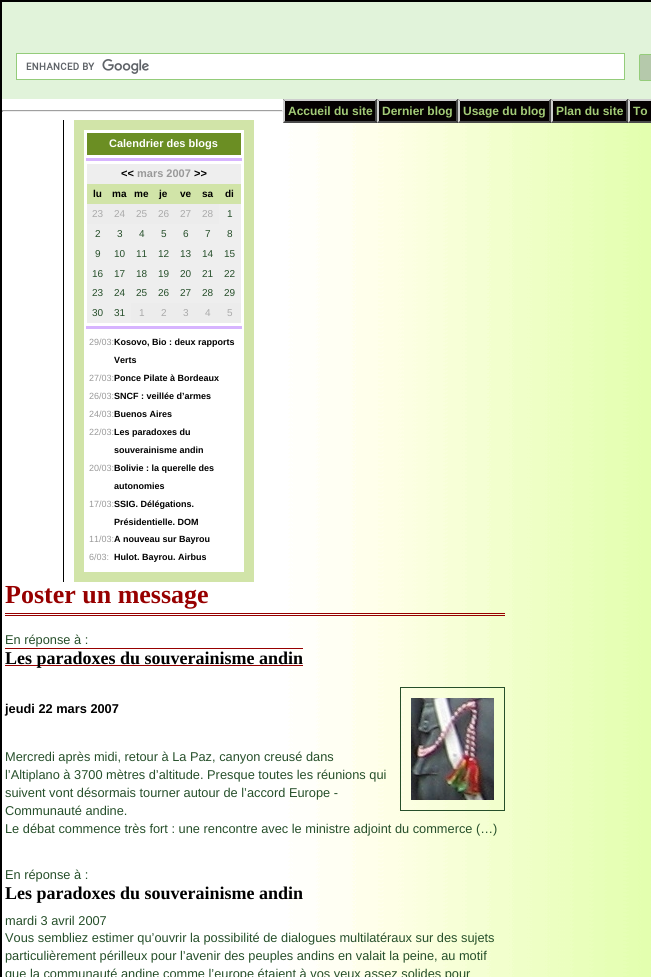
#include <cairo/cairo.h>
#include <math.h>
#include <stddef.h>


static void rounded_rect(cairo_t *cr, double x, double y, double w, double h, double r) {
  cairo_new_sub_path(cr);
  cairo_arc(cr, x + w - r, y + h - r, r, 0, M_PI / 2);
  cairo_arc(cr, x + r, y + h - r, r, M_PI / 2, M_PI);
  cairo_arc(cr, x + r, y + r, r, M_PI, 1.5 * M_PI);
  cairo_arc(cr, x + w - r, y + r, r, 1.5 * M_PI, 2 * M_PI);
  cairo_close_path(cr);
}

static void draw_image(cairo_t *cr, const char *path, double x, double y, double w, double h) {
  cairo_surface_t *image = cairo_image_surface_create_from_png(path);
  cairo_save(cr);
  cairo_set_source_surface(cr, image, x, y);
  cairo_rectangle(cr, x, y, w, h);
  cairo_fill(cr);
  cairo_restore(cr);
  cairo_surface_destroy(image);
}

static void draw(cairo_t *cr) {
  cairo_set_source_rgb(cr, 1, 1, 1);
  cairo_paint(cr);
  draw_image(cr, "images/1.png", 2, 99, 649, 878);
  cairo_rectangle(cr, 1, 1, 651, 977);
  cairo_set_source_rgb(cr, 0, 0, 0);
  cairo_stroke(cr);
  cairo_set_source_rgb(cr, 159 / 255.0, 159 / 255.0, 159 / 255.0);
  cairo_rectangle(cr, 2, 110, 281, 1);
  cairo_fill(cr);
  cairo_set_source_rgb(cr, 238 / 255.0, 238 / 255.0, 238 / 255.0);
  cairo_rectangle(cr, 282, 110, 1, 2);
  cairo_fill(cr);
  cairo_rectangle(cr, 2, 111, 281, 1);
  cairo_fill(cr);
  cairo_set_source_rgb(cr, 159 / 255.0, 159 / 255.0, 159 / 255.0);
  cairo_rectangle(cr, 2, 110, 1, 2);
  cairo_fill(cr);
  cairo_set_source_rgb(cr, 225 / 255.0, 243 / 255.0, 218 / 255.0);
  cairo_rectangle(cr, 2, 2, 649, 97);
  cairo_fill(cr);
  cairo_set_source_rgb(cr, 1, 1, 1);
  cairo_rectangle(cr, 16.5, 53.5, 608, 26);
  cairo_fill_preserve(cr);
  cairo_set_source_rgb(cr, 148 / 255.0, 204 / 255.0, 122 / 255.0);
  cairo_set_line_width(cr, 1);
  cairo_stroke(cr);
  draw_image(cr, "images/2.png", 26, 59, 123, 15);
  cairo_set_source_rgb(cr, 181 / 255.0, 201 / 255.0, 171 / 255.0);
  rounded_rect(cr, 639.5, 54.5, 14, 26, 1.5);
  cairo_fill_preserve(cr);
  cairo_set_source_rgb(cr, 148 / 255.0, 204 / 255.0, 122 / 255.0);
  cairo_stroke(cr);
  cairo_set_source_rgb(cr, 5 / 255.0, 1 / 255.0, 1 / 255.0);
  cairo_rectangle(cr, 283, 99, 368, 24);
  cairo_fill(cr);
  cairo_set_source_rgb(cr, 206 / 255.0, 206 / 255.0, 206 / 255.0);
  cairo_new_path(cr);
  cairo_move_to(cr, 283, 99);
  cairo_line_to(cr, 377, 99);
  cairo_line_to(cr, 375, 101);
  cairo_line_to(cr, 285, 101);
  cairo_close_path(cr);
  cairo_fill(cr);
  cairo_set_source_rgb(cr, 74 / 255.0, 74 / 255.0, 74 / 255.0);
  cairo_new_path(cr);
  cairo_move_to(cr, 377, 99);
  cairo_line_to(cr, 377, 123);
  cairo_line_to(cr, 375, 121);
  cairo_line_to(cr, 375, 101);
  cairo_close_path(cr);
  cairo_fill(cr);
  cairo_new_path(cr);
  cairo_move_to(cr, 377, 123);
  cairo_line_to(cr, 283, 123);
  cairo_line_to(cr, 285, 121);
  cairo_line_to(cr, 375, 121);
  cairo_close_path(cr);
  cairo_fill(cr);
  cairo_set_source_rgb(cr, 206 / 255.0, 206 / 255.0, 206 / 255.0);
  cairo_new_path(cr);
  cairo_move_to(cr, 283, 123);
  cairo_line_to(cr, 283, 99);
  cairo_line_to(cr, 285, 101);
  cairo_line_to(cr, 285, 121);
  cairo_close_path(cr);
  cairo_fill(cr);
  cairo_new_path(cr);
  cairo_move_to(cr, 377, 99);
  cairo_line_to(cr, 458, 99);
  cairo_line_to(cr, 456, 101);
  cairo_line_to(cr, 379, 101);
  cairo_close_path(cr);
  cairo_fill(cr);
  cairo_set_source_rgb(cr, 74 / 255.0, 74 / 255.0, 74 / 255.0);
  cairo_new_path(cr);
  cairo_move_to(cr, 458, 99);
  cairo_line_to(cr, 458, 123);
  cairo_line_to(cr, 456, 121);
  cairo_line_to(cr, 456, 101);
  cairo_close_path(cr);
  cairo_fill(cr);
  cairo_new_path(cr);
  cairo_move_to(cr, 458, 123);
  cairo_line_to(cr, 377, 123);
  cairo_line_to(cr, 379, 121);
  cairo_line_to(cr, 456, 121);
  cairo_close_path(cr);
  cairo_fill(cr);
  cairo_set_source_rgb(cr, 206 / 255.0, 206 / 255.0, 206 / 255.0);
  cairo_new_path(cr);
  cairo_move_to(cr, 377, 123);
  cairo_line_to(cr, 377, 99);
  cairo_line_to(cr, 379, 101);
  cairo_line_to(cr, 379, 121);
  cairo_close_path(cr);
  cairo_fill(cr);
  cairo_new_path(cr);
  cairo_move_to(cr, 458, 99);
  cairo_line_to(cr, 551, 99);
  cairo_line_to(cr, 549, 101);
  cairo_line_to(cr, 460, 101);
  cairo_close_path(cr);
  cairo_fill(cr);
  cairo_set_source_rgb(cr, 74 / 255.0, 74 / 255.0, 74 / 255.0);
  cairo_new_path(cr);
  cairo_move_to(cr, 551, 99);
  cairo_line_to(cr, 551, 123);
  cairo_line_to(cr, 549, 121);
  cairo_line_to(cr, 549, 101);
  cairo_close_path(cr);
  cairo_fill(cr);
  cairo_new_path(cr);
  cairo_move_to(cr, 551, 123);
  cairo_line_to(cr, 458, 123);
  cairo_line_to(cr, 460, 121);
  cairo_line_to(cr, 549, 121);
  cairo_close_path(cr);
  cairo_fill(cr);
  cairo_set_source_rgb(cr, 206 / 255.0, 206 / 255.0, 206 / 255.0);
  cairo_new_path(cr);
  cairo_move_to(cr, 458, 123);
  cairo_line_to(cr, 458, 99);
  cairo_line_to(cr, 460, 101);
  cairo_line_to(cr, 460, 121);
  cairo_close_path(cr);
  cairo_fill(cr);
  cairo_new_path(cr);
  cairo_move_to(cr, 551, 99);
  cairo_line_to(cr, 628, 99);
  cairo_line_to(cr, 626, 101);
  cairo_line_to(cr, 553, 101);
  cairo_close_path(cr);
  cairo_fill(cr);
  cairo_set_source_rgb(cr, 74 / 255.0, 74 / 255.0, 74 / 255.0);
  cairo_new_path(cr);
  cairo_move_to(cr, 628, 99);
  cairo_line_to(cr, 628, 123);
  cairo_line_to(cr, 626, 121);
  cairo_line_to(cr, 626, 101);
  cairo_close_path(cr);
  cairo_fill(cr);
  cairo_new_path(cr);
  cairo_move_to(cr, 628, 123);
  cairo_line_to(cr, 551, 123);
  cairo_line_to(cr, 553, 121);
  cairo_line_to(cr, 626, 121);
  cairo_close_path(cr);
  cairo_fill(cr);
  cairo_set_source_rgb(cr, 206 / 255.0, 206 / 255.0, 206 / 255.0);
  cairo_new_path(cr);
  cairo_move_to(cr, 551, 123);
  cairo_line_to(cr, 551, 99);
  cairo_line_to(cr, 553, 101);
  cairo_line_to(cr, 553, 121);
  cairo_close_path(cr);
  cairo_fill(cr);
  cairo_new_path(cr);
  cairo_move_to(cr, 628, 99);
  cairo_line_to(cr, 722, 99);
  cairo_line_to(cr, 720, 101);
  cairo_line_to(cr, 630, 101);
  cairo_close_path(cr);
  cairo_fill(cr);
  cairo_set_source_rgb(cr, 74 / 255.0, 74 / 255.0, 74 / 255.0);
  cairo_new_path(cr);
  cairo_move_to(cr, 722, 123);
  cairo_line_to(cr, 628, 123);
  cairo_line_to(cr, 630, 121);
  cairo_line_to(cr, 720, 121);
  cairo_close_path(cr);
  cairo_fill(cr);
  cairo_set_source_rgb(cr, 206 / 255.0, 206 / 255.0, 206 / 255.0);
  cairo_new_path(cr);
  cairo_move_to(cr, 628, 123);
  cairo_line_to(cr, 628, 99);
  cairo_line_to(cr, 630, 101);
  cairo_line_to(cr, 630, 121);
  cairo_close_path(cr);
  cairo_fill(cr);
  cairo_set_source_rgb(cr, 0, 0, 0);
  cairo_rectangle(cr, 63, 120, 1, 462);
  cairo_fill(cr);
  cairo_rectangle(cr, 79, 125, 170, 452);
  cairo_set_source_rgb(cr, 209 / 255.0, 228 / 255.0, 168 / 255.0);
  cairo_set_line_width(cr, 10);
  cairo_stroke(cr);
  cairo_set_source_rgb(cr, 107 / 255.0, 142 / 255.0, 35 / 255.0);
  cairo_rectangle(cr, 87, 133, 154, 22);
  cairo_fill(cr);
  cairo_set_source_rgb(cr, 215 / 255.0, 180 / 255.0, 1);
  cairo_rectangle(cr, 86, 158, 156, 3);
  cairo_fill(cr);
  cairo_set_source_rgb(cr, 238 / 255.0, 238 / 255.0, 238 / 255.0);
  cairo_rectangle(cr, 87, 164, 154, 20);
  cairo_fill(cr);
  cairo_set_source_rgb(cr, 209 / 255.0, 228 / 255.0, 168 / 255.0);
  cairo_rectangle(cr, 87, 184, 154, 20);
  cairo_fill(cr);
  cairo_set_source_rgb(cr, 236 / 255.0, 236 / 255.0, 236 / 255.0);
  cairo_rectangle(cr, 87, 204, 132, 20);
  cairo_fill(cr);
  cairo_set_source_rgb(cr, 238 / 255.0, 238 / 255.0, 238 / 255.0);
  cairo_rectangle(cr, 219, 204, 22, 20);
  cairo_fill(cr);
  cairo_rectangle(cr, 87, 224, 154, 20);
  cairo_fill(cr);
  cairo_rectangle(cr, 87, 244, 154, 20);
  cairo_fill(cr);
  cairo_rectangle(cr, 87, 264, 154, 19);
  cairo_fill(cr);
  cairo_rectangle(cr, 87, 283, 154, 20);
  cairo_fill(cr);
  cairo_rectangle(cr, 87, 303, 44, 20);
  cairo_fill(cr);
  cairo_set_source_rgb(cr, 236 / 255.0, 236 / 255.0, 236 / 255.0);
  cairo_rectangle(cr, 131, 303, 110, 20);
  cairo_fill(cr);
  cairo_set_source_rgb(cr, 215 / 255.0, 180 / 255.0, 1);
  cairo_rectangle(cr, 86, 326, 156, 3);
  cairo_fill(cr);
  cairo_set_source_rgb(cr, 151 / 255.0, 0, 0);
  cairo_rectangle(cr, 5, 613, 500, 1);
  cairo_fill(cr);
  cairo_rectangle(cr, 5, 615, 500, 1);
  cairo_fill(cr);
  cairo_rectangle(cr, 5, 665, 298, 1);
  cairo_fill(cr);
  cairo_rectangle(cr, 5, 648, 298, 1);
  cairo_fill(cr);
  cairo_rectangle(cr, 400.5, 687.5, 104, 123);
  cairo_set_source_rgb(cr, 38 / 255.0, 79 / 255.0, 42 / 255.0);
  cairo_set_line_width(cr, 1);
  cairo_stroke(cr);
  draw_image(cr, "images/3.png", 411, 698, 83, 102);
  cairo_select_font_face(cr, "Liberation Sans", CAIRO_FONT_SLANT_NORMAL, CAIRO_FONT_WEIGHT_BOLD);
  cairo_set_font_size(cr, 12);
  cairo_set_source_rgb(cr, 163 / 255.0, 203 / 255.0, 119 / 255.0);
  cairo_move_to(cr, 288, 115);
  cairo_show_text(cr, "Accueil du site");
  cairo_move_to(cr, 382, 115);
  cairo_show_text(cr, "Dernier blog");
  cairo_move_to(cr, 463, 115);
  cairo_show_text(cr, "Usage du blog");
  cairo_move_to(cr, 556, 115);
  cairo_show_text(cr, "Plan du site");
  cairo_move_to(cr, 633, 115);
  cairo_show_text(cr, "To");
  cairo_set_font_size(cr, 11);
  cairo_set_source_rgb(cr, 1, 1, 1);
  cairo_move_to(cr, 109, 147);
  cairo_show_text(cr, "Calendrier des blogs");
  cairo_set_source_rgb(cr, 0, 0, 0);
  cairo_move_to(cr, 121, 177);
  cairo_show_text(cr, "<<");
  cairo_set_source_rgb(cr, 153 / 255.0, 153 / 255.0, 153 / 255.0);
  cairo_move_to(cr, 137, 177);
  cairo_show_text(cr, "mars 2007");
  cairo_set_source_rgb(cr, 0, 0, 0);
  cairo_move_to(cr, 194, 177);
  cairo_show_text(cr, ">>");
  cairo_set_font_size(cr, 10);
  cairo_move_to(cr, 93, 197);
  cairo_show_text(cr, "lu");
  cairo_move_to(cr, 112, 197);
  cairo_show_text(cr, "ma");
  cairo_move_to(cr, 134, 197);
  cairo_show_text(cr, "me");
  cairo_move_to(cr, 159, 197);
  cairo_show_text(cr, "je");
  cairo_move_to(cr, 180, 197);
  cairo_show_text(cr, "ve");
  cairo_move_to(cr, 202, 197);
  cairo_show_text(cr, "sa");
  cairo_move_to(cr, 225, 197);
  cairo_show_text(cr, "di");
  cairo_select_font_face(cr, "Liberation Sans", CAIRO_FONT_SLANT_NORMAL, CAIRO_FONT_WEIGHT_NORMAL);
  cairo_set_source_rgb(cr, 170 / 255.0, 170 / 255.0, 170 / 255.0);
  cairo_move_to(cr, 92, 217);
  cairo_show_text(cr, "23");
  cairo_move_to(cr, 114, 217);
  cairo_show_text(cr, "24");
  cairo_move_to(cr, 136, 217);
  cairo_show_text(cr, "25");
  cairo_move_to(cr, 158, 217);
  cairo_show_text(cr, "26");
  cairo_move_to(cr, 180, 217);
  cairo_show_text(cr, "27");
  cairo_move_to(cr, 202, 217);
  cairo_show_text(cr, "28");
  cairo_set_source_rgb(cr, 38 / 255.0, 79 / 255.0, 42 / 255.0);
  cairo_move_to(cr, 227, 217);
  cairo_show_text(cr, "1");
  cairo_move_to(cr, 95, 237);
  cairo_show_text(cr, "2");
  cairo_move_to(cr, 117, 237);
  cairo_show_text(cr, "3");
  cairo_move_to(cr, 139, 237);
  cairo_show_text(cr, "4");
  cairo_move_to(cr, 161, 237);
  cairo_show_text(cr, "5");
  cairo_move_to(cr, 183, 237);
  cairo_show_text(cr, "6");
  cairo_move_to(cr, 205, 237);
  cairo_show_text(cr, "7");
  cairo_move_to(cr, 227, 237);
  cairo_show_text(cr, "8");
  cairo_move_to(cr, 95, 257);
  cairo_show_text(cr, "9");
  cairo_move_to(cr, 114, 257);
  cairo_show_text(cr, "10");
  cairo_move_to(cr, 136, 257);
  cairo_show_text(cr, "11");
  cairo_move_to(cr, 158, 257);
  cairo_show_text(cr, "12");
  cairo_move_to(cr, 180, 257);
  cairo_show_text(cr, "13");
  cairo_move_to(cr, 202, 257);
  cairo_show_text(cr, "14");
  cairo_move_to(cr, 224, 257);
  cairo_show_text(cr, "15");
  cairo_move_to(cr, 92, 277);
  cairo_show_text(cr, "16");
  cairo_move_to(cr, 114, 277);
  cairo_show_text(cr, "17");
  cairo_move_to(cr, 136, 277);
  cairo_show_text(cr, "18");
  cairo_move_to(cr, 158, 277);
  cairo_show_text(cr, "19");
  cairo_move_to(cr, 180, 277);
  cairo_show_text(cr, "20");
  cairo_move_to(cr, 202, 277);
  cairo_show_text(cr, "21");
  cairo_move_to(cr, 224, 277);
  cairo_show_text(cr, "22");
  cairo_move_to(cr, 92, 296);
  cairo_show_text(cr, "23");
  cairo_move_to(cr, 114, 296);
  cairo_show_text(cr, "24");
  cairo_move_to(cr, 136, 296);
  cairo_show_text(cr, "25");
  cairo_move_to(cr, 158, 296);
  cairo_show_text(cr, "26");
  cairo_move_to(cr, 180, 296);
  cairo_show_text(cr, "27");
  cairo_move_to(cr, 202, 296);
  cairo_show_text(cr, "28");
  cairo_move_to(cr, 224, 296);
  cairo_show_text(cr, "29");
  cairo_move_to(cr, 92, 316);
  cairo_show_text(cr, "30");
  cairo_move_to(cr, 114, 316);
  cairo_show_text(cr, "31");
  cairo_set_source_rgb(cr, 170 / 255.0, 170 / 255.0, 170 / 255.0);
  cairo_move_to(cr, 139, 316);
  cairo_show_text(cr, "1");
  cairo_move_to(cr, 161, 316);
  cairo_show_text(cr, "2");
  cairo_move_to(cr, 183, 316);
  cairo_show_text(cr, "3");
  cairo_move_to(cr, 205, 316);
  cairo_show_text(cr, "4");
  cairo_move_to(cr, 227, 316);
  cairo_show_text(cr, "5");
  cairo_set_font_size(cr, 9);
  cairo_set_source_rgb(cr, 153 / 255.0, 153 / 255.0, 153 / 255.0);
  cairo_move_to(cr, 89, 345);
  cairo_show_text(cr, "29/03:");
  cairo_select_font_face(cr, "Liberation Sans", CAIRO_FONT_SLANT_NORMAL, CAIRO_FONT_WEIGHT_BOLD);
  cairo_set_source_rgb(cr, 0, 0, 0);
  cairo_move_to(cr, 114, 345);
  cairo_show_text(cr, "Kosovo, Bio : deux rapports");
  cairo_move_to(cr, 114, 363);
  cairo_show_text(cr, "Verts");
  cairo_select_font_face(cr, "Liberation Sans", CAIRO_FONT_SLANT_NORMAL, CAIRO_FONT_WEIGHT_NORMAL);
  cairo_set_source_rgb(cr, 153 / 255.0, 153 / 255.0, 153 / 255.0);
  cairo_move_to(cr, 89, 381);
  cairo_show_text(cr, "27/03:");
  cairo_select_font_face(cr, "Liberation Sans", CAIRO_FONT_SLANT_NORMAL, CAIRO_FONT_WEIGHT_BOLD);
  cairo_set_source_rgb(cr, 0, 0, 0);
  cairo_move_to(cr, 114, 381);
  cairo_show_text(cr, "Ponce Pilate à Bordeaux");
  cairo_select_font_face(cr, "Liberation Sans", CAIRO_FONT_SLANT_NORMAL, CAIRO_FONT_WEIGHT_NORMAL);
  cairo_set_source_rgb(cr, 153 / 255.0, 153 / 255.0, 153 / 255.0);
  cairo_move_to(cr, 89, 399);
  cairo_show_text(cr, "26/03:");
  cairo_select_font_face(cr, "Liberation Sans", CAIRO_FONT_SLANT_NORMAL, CAIRO_FONT_WEIGHT_BOLD);
  cairo_set_source_rgb(cr, 0, 0, 0);
  cairo_move_to(cr, 114, 399);
  cairo_show_text(cr, "SNCF : veillée d’armes");
  cairo_select_font_face(cr, "Liberation Sans", CAIRO_FONT_SLANT_NORMAL, CAIRO_FONT_WEIGHT_NORMAL);
  cairo_set_source_rgb(cr, 153 / 255.0, 153 / 255.0, 153 / 255.0);
  cairo_move_to(cr, 89, 417);
  cairo_show_text(cr, "24/03:");
  cairo_select_font_face(cr, "Liberation Sans", CAIRO_FONT_SLANT_NORMAL, CAIRO_FONT_WEIGHT_BOLD);
  cairo_set_source_rgb(cr, 0, 0, 0);
  cairo_move_to(cr, 114, 417);
  cairo_show_text(cr, "Buenos Aires");
  cairo_select_font_face(cr, "Liberation Sans", CAIRO_FONT_SLANT_NORMAL, CAIRO_FONT_WEIGHT_NORMAL);
  cairo_set_source_rgb(cr, 153 / 255.0, 153 / 255.0, 153 / 255.0);
  cairo_move_to(cr, 89, 435);
  cairo_show_text(cr, "22/03:");
  cairo_select_font_face(cr, "Liberation Sans", CAIRO_FONT_SLANT_NORMAL, CAIRO_FONT_WEIGHT_BOLD);
  cairo_set_source_rgb(cr, 0, 0, 0);
  cairo_move_to(cr, 114, 435);
  cairo_show_text(cr, "Les paradoxes du");
  cairo_move_to(cr, 114, 453);
  cairo_show_text(cr, "souverainisme andin");
  cairo_select_font_face(cr, "Liberation Sans", CAIRO_FONT_SLANT_NORMAL, CAIRO_FONT_WEIGHT_NORMAL);
  cairo_set_source_rgb(cr, 153 / 255.0, 153 / 255.0, 153 / 255.0);
  cairo_move_to(cr, 89, 471);
  cairo_show_text(cr, "20/03:");
  cairo_select_font_face(cr, "Liberation Sans", CAIRO_FONT_SLANT_NORMAL, CAIRO_FONT_WEIGHT_BOLD);
  cairo_set_source_rgb(cr, 0, 0, 0);
  cairo_move_to(cr, 114, 471);
  cairo_show_text(cr, "Bolivie : la querelle des");
  cairo_move_to(cr, 114, 489);
  cairo_show_text(cr, "autonomies");
  cairo_select_font_face(cr, "Liberation Sans", CAIRO_FONT_SLANT_NORMAL, CAIRO_FONT_WEIGHT_NORMAL);
  cairo_set_source_rgb(cr, 153 / 255.0, 153 / 255.0, 153 / 255.0);
  cairo_move_to(cr, 89, 507);
  cairo_show_text(cr, "17/03:");
  cairo_select_font_face(cr, "Liberation Sans", CAIRO_FONT_SLANT_NORMAL, CAIRO_FONT_WEIGHT_BOLD);
  cairo_set_source_rgb(cr, 0, 0, 0);
  cairo_move_to(cr, 114, 507);
  cairo_show_text(cr, "SSIG. Délégations.");
  cairo_move_to(cr, 114, 525);
  cairo_show_text(cr, "Présidentielle. DOM");
  cairo_select_font_face(cr, "Liberation Sans", CAIRO_FONT_SLANT_NORMAL, CAIRO_FONT_WEIGHT_NORMAL);
  cairo_set_source_rgb(cr, 153 / 255.0, 153 / 255.0, 153 / 255.0);
  cairo_move_to(cr, 89, 542);
  cairo_show_text(cr, "11/03:");
  cairo_select_font_face(cr, "Liberation Sans", CAIRO_FONT_SLANT_NORMAL, CAIRO_FONT_WEIGHT_BOLD);
  cairo_set_source_rgb(cr, 0, 0, 0);
  cairo_move_to(cr, 114, 542);
  cairo_show_text(cr, "A nouveau sur Bayrou");
  cairo_select_font_face(cr, "Liberation Sans", CAIRO_FONT_SLANT_NORMAL, CAIRO_FONT_WEIGHT_NORMAL);
  cairo_set_source_rgb(cr, 153 / 255.0, 153 / 255.0, 153 / 255.0);
  cairo_move_to(cr, 89, 560);
  cairo_show_text(cr, "6/03:");
  cairo_select_font_face(cr, "Liberation Sans", CAIRO_FONT_SLANT_NORMAL, CAIRO_FONT_WEIGHT_BOLD);
  cairo_set_source_rgb(cr, 0, 0, 0);
  cairo_move_to(cr, 114, 560);
  cairo_show_text(cr, "Hulot. Bayrou. Airbus");
  cairo_select_font_face(cr, "Liberation Serif", CAIRO_FONT_SLANT_NORMAL, CAIRO_FONT_WEIGHT_BOLD);
  cairo_set_font_size(cr, 26);
  cairo_set_source_rgb(cr, 151 / 255.0, 0, 0);
  cairo_move_to(cr, 5, 603);
  cairo_show_text(cr, "Poster un message");
  cairo_select_font_face(cr, "Liberation Sans", CAIRO_FONT_SLANT_NORMAL, CAIRO_FONT_WEIGHT_NORMAL);
  cairo_set_font_size(cr, 12.8);
  cairo_set_source_rgb(cr, 38 / 255.0, 79 / 255.0, 42 / 255.0);
  cairo_move_to(cr, 5, 644);
  cairo_show_text(cr, "En réponse à :");
  cairo_select_font_face(cr, "Liberation Serif", CAIRO_FONT_SLANT_NORMAL, CAIRO_FONT_WEIGHT_BOLD);
  cairo_set_font_size(cr, 18);
  cairo_set_source_rgb(cr, 0, 0, 0);
  cairo_move_to(cr, 5, 664);
  cairo_show_text(cr, "Les paradoxes du souverainisme andin");
  cairo_select_font_face(cr, "Liberation Sans", CAIRO_FONT_SLANT_NORMAL, CAIRO_FONT_WEIGHT_BOLD);
  cairo_set_font_size(cr, 12.8);
  cairo_move_to(cr, 5, 713);
  cairo_show_text(cr, "jeudi 22 mars 2007");
  cairo_select_font_face(cr, "Liberation Sans", CAIRO_FONT_SLANT_NORMAL, CAIRO_FONT_WEIGHT_NORMAL);
  cairo_set_source_rgb(cr, 38 / 255.0, 79 / 255.0, 42 / 255.0);
  cairo_move_to(cr, 5, 761);
  cairo_show_text(cr, "Mercredi après midi, retour à La Paz, canyon creusé dans");
  cairo_move_to(cr, 5, 779);
  cairo_show_text(cr, "l’Altiplano à 3700 mètres d’altitude. Presque toutes les réunions qui");
  cairo_move_to(cr, 5, 797);
  cairo_show_text(cr, "suivent vont désormais tourner autour de l’accord Europe -");
  cairo_move_to(cr, 5, 815);
  cairo_show_text(cr, "Communauté andine.");
  cairo_move_to(cr, 5, 833);
  cairo_show_text(cr, "Le débat commence très fort : une rencontre avec le ministre adjoint du commerce (…)");
  cairo_move_to(cr, 5, 879);
  cairo_show_text(cr, "En réponse à :");
  cairo_select_font_face(cr, "Liberation Serif", CAIRO_FONT_SLANT_NORMAL, CAIRO_FONT_WEIGHT_BOLD);
  cairo_set_font_size(cr, 18);
  cairo_set_source_rgb(cr, 0, 0, 0);
  cairo_move_to(cr, 5, 899);
  cairo_show_text(cr, "Les paradoxes du souverainisme andin");
  cairo_select_font_face(cr, "Liberation Sans", CAIRO_FONT_SLANT_NORMAL, CAIRO_FONT_WEIGHT_NORMAL);
  cairo_set_font_size(cr, 12.8);
  cairo_set_source_rgb(cr, 38 / 255.0, 79 / 255.0, 42 / 255.0);
  cairo_move_to(cr, 5, 925);
  cairo_show_text(cr, "mardi 3 avril 2007");
  cairo_move_to(cr, 5, 942);
  cairo_show_text(cr, "Vous sembliez estimer qu’ouvrir la possibilité de dialogues multilatéraux sur des sujets");
  cairo_move_to(cr, 5, 960);
  cairo_show_text(cr, "particulièrement périlleux pour l’avenir des peuples andins en valait la peine, au motif");
  cairo_move_to(cr, 5, 978);
  cairo_show_text(cr, "que la communauté andine comme l’europe étaient à vos yeux assez solides pour");
}

int main(void) {
  cairo_surface_t *surface = cairo_image_surface_create(CAIRO_FORMAT_RGB24, 651, 977);
  cairo_t *cr = cairo_create(surface);
  cairo_font_options_t *options = cairo_font_options_create();
  cairo_font_options_set_hint_metrics(options, CAIRO_HINT_METRICS_OFF);
  cairo_font_options_set_hint_style(options, CAIRO_HINT_STYLE_NONE);
  cairo_set_font_options(cr, options);
  cairo_set_miter_limit(cr, 4);
  draw(cr);
  cairo_surface_write_to_png(surface, "out.png");
  cairo_font_options_destroy(options);
  cairo_destroy(cr);
  cairo_surface_destroy(surface);
  return 0;
}
